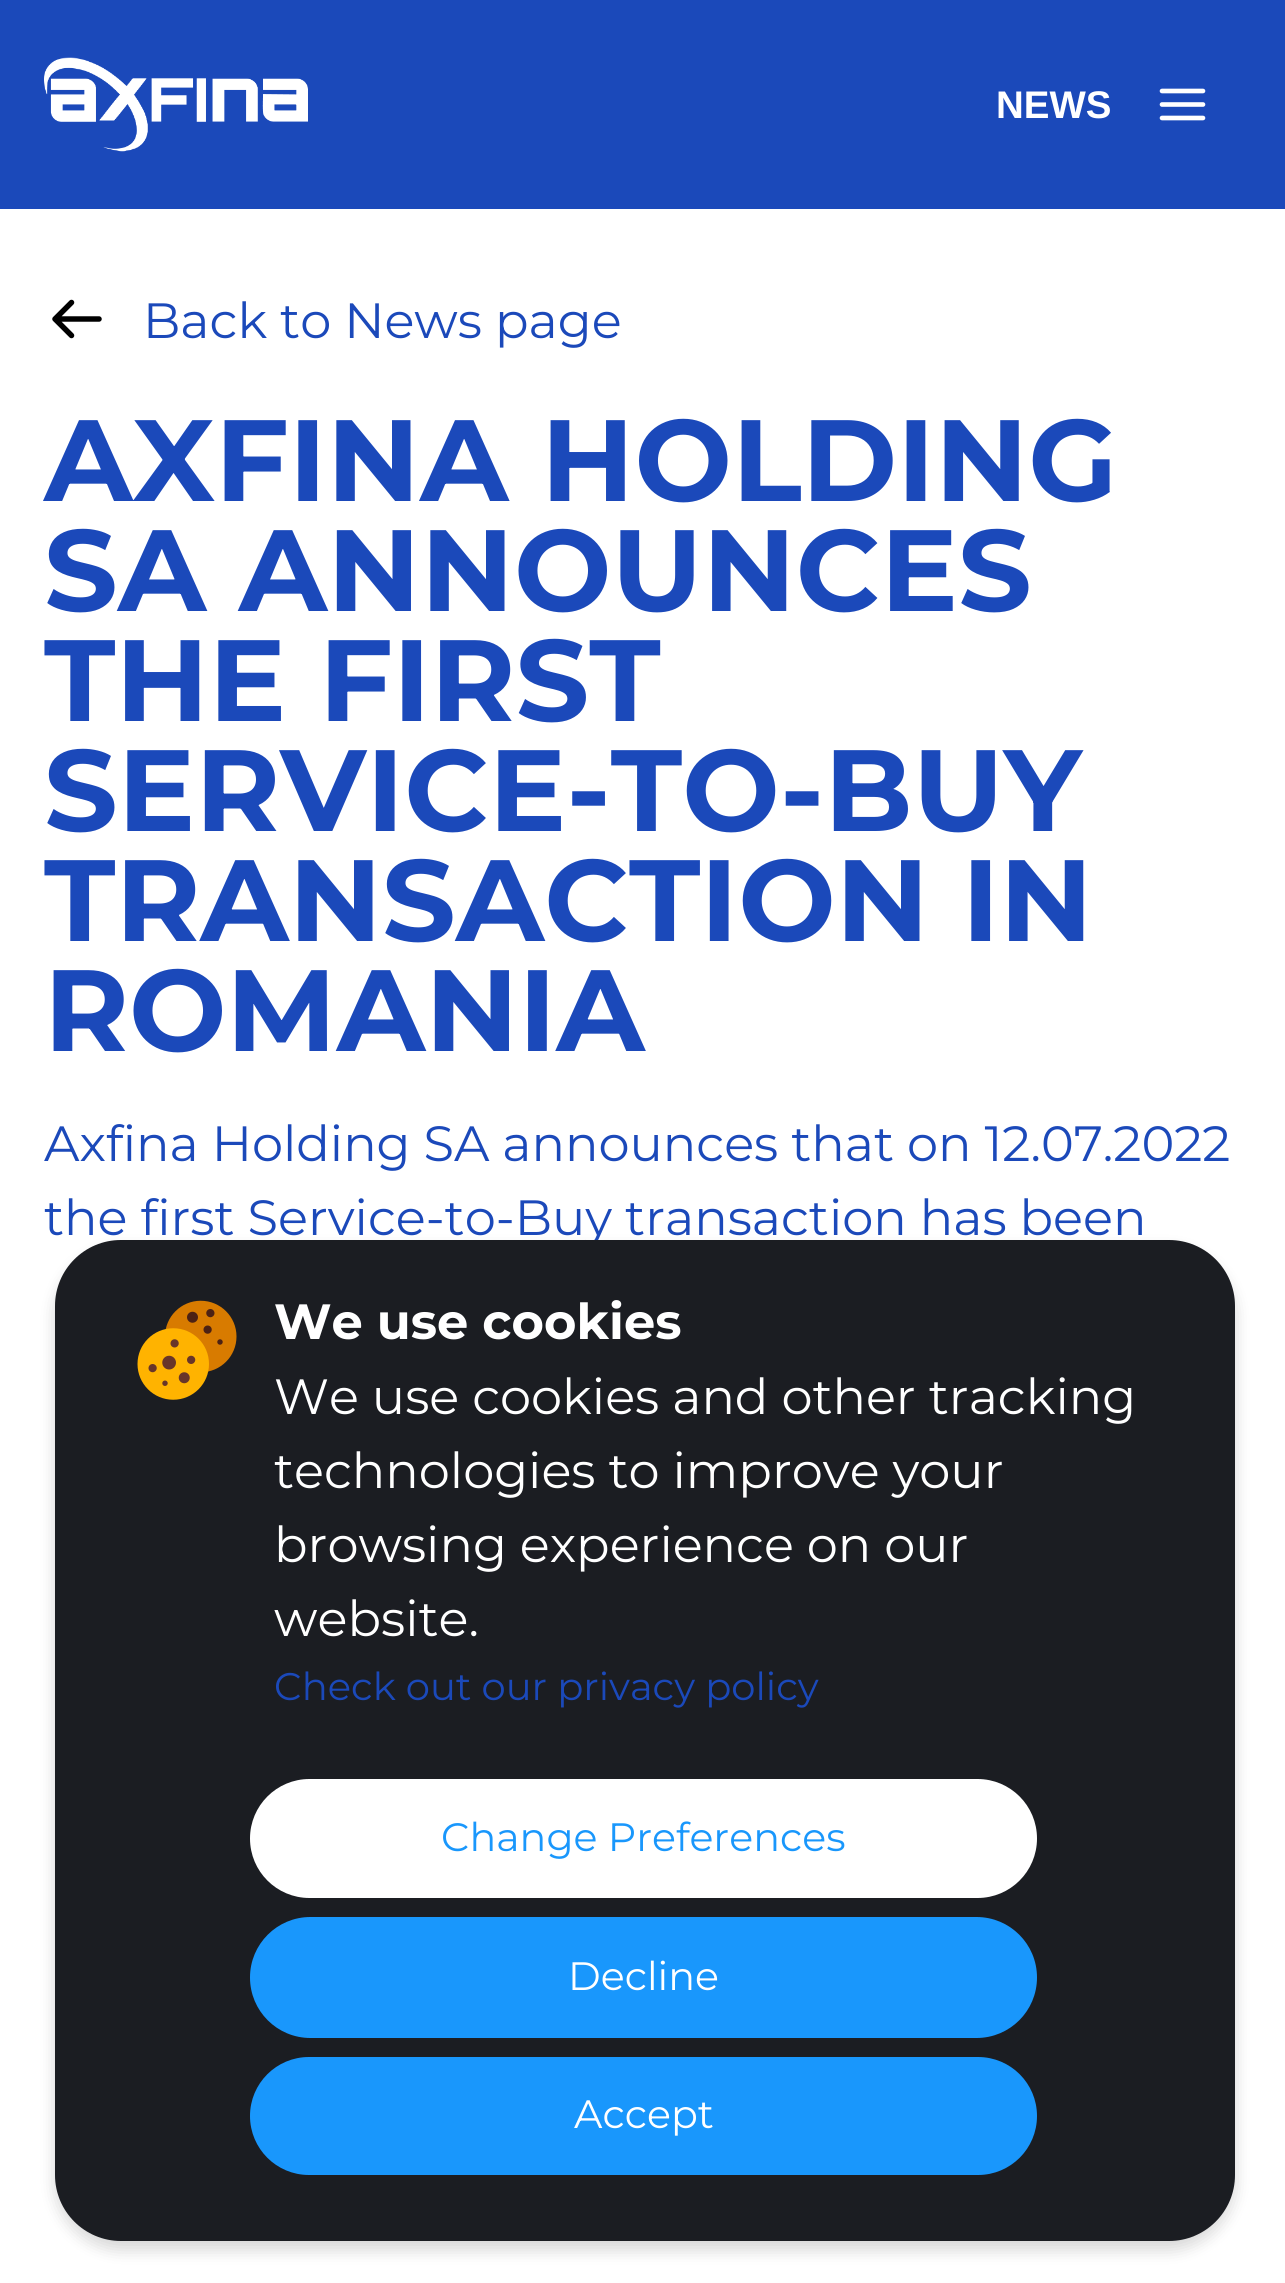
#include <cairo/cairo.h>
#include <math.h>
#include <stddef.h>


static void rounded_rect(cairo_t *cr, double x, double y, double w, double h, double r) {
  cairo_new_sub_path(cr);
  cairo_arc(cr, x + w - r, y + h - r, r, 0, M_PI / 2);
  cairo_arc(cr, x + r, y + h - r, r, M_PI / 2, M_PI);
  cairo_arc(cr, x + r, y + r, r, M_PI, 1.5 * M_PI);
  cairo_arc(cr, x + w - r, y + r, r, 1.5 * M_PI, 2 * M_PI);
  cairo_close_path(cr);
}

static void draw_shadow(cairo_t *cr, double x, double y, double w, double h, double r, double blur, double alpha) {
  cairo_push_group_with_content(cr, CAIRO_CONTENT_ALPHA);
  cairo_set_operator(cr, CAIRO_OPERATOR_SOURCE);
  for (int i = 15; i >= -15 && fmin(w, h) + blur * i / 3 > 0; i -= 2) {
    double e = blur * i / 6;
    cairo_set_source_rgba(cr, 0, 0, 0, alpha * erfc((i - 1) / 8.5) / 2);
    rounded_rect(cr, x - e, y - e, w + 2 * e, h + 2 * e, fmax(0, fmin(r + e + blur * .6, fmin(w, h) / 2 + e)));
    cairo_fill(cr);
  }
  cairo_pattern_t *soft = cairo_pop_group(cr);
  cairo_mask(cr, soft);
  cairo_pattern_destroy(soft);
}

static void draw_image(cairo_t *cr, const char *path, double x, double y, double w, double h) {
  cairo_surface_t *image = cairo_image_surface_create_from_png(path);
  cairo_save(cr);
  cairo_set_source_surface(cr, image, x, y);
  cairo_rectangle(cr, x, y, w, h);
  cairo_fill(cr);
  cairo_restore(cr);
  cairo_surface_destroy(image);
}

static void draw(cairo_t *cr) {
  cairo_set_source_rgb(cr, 1, 1, 1);
  cairo_paint(cr);
  cairo_set_source_rgb(cr, 27 / 255.0, 73 / 255.0, 186 / 255.0);
  cairo_rectangle(cr, 0, 0, 1285, 209);
  cairo_fill(cr);
  draw_image(cr, "images/1.png", 44, 57, 264, 95);
  cairo_new_path(cr);
  cairo_move_to(cr, 1162, 104.5);
  cairo_line_to(cr, 1203, 104.5);
  cairo_move_to(cr, 1162, 91);
  cairo_line_to(cr, 1203, 91);
  cairo_move_to(cr, 1162, 118);
  cairo_line_to(cr, 1203, 118);
  cairo_set_source_rgb(cr, 1, 1, 1);
  cairo_set_line_width(cr, 4.6);
  cairo_set_line_cap(cr, CAIRO_LINE_CAP_ROUND);
  cairo_set_line_join(cr, CAIRO_LINE_JOIN_ROUND);
  cairo_stroke(cr);
  cairo_new_path(cr);
  cairo_move_to(cr, 99, 319);
  cairo_line_to(cr, 55, 319);
  cairo_move_to(cr, 71.5, 335.5);
  cairo_line_to(cr, 55, 319);
  cairo_line_to(cr, 71.5, 302.5);
  cairo_set_source_rgb(cr, 0, 0, 0);
  cairo_set_line_width(cr, 5.5);
  cairo_stroke(cr);
  cairo_set_source_rgb(cr, 0, 0, 0);
  draw_shadow(cr, 55, 1249, 1180, 1001, 66, 8, 0.16);
  cairo_select_font_face(cr, "Liberation Sans", CAIRO_FONT_SLANT_NORMAL, CAIRO_FONT_WEIGHT_BOLD);
  cairo_set_font_size(cr, 38.5);
  cairo_set_source_rgb(cr, 1, 1, 1);
  cairo_move_to(cr, 996, 118);
  cairo_show_text(cr, "NEWS");
  cairo_select_font_face(cr, "Montserrat Thin", CAIRO_FONT_SLANT_NORMAL, CAIRO_FONT_WEIGHT_NORMAL);
  cairo_set_font_size(cr, 49.5);
  cairo_set_source_rgb(cr, 27 / 255.0, 73 / 255.0, 186 / 255.0);
  cairo_move_to(cr, 143, 338);
  cairo_show_text(cr, "Back to News page");
  cairo_select_font_face(cr, "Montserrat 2 Thin", CAIRO_FONT_SLANT_NORMAL, CAIRO_FONT_WEIGHT_NORMAL);
  cairo_set_font_size(cr, 115.5);
  cairo_move_to(cr, 44, 501);
  cairo_show_text(cr, "AXFINA HOLDING");
  cairo_move_to(cr, 44, 611);
  cairo_show_text(cr, "SA ANNOUNCES");
  cairo_move_to(cr, 44, 721);
  cairo_show_text(cr, "THE FIRST");
  cairo_move_to(cr, 44, 831);
  cairo_show_text(cr, "SERVICE-TO-BUY");
  cairo_move_to(cr, 44, 941);
  cairo_show_text(cr, "TRANSACTION IN");
  cairo_move_to(cr, 44, 1051);
  cairo_show_text(cr, "ROMANIA");
  cairo_select_font_face(cr, "Montserrat Thin", CAIRO_FONT_SLANT_NORMAL, CAIRO_FONT_WEIGHT_NORMAL);
  cairo_set_font_size(cr, 49.5);
  cairo_move_to(cr, 44, 1161);
  cairo_show_text(cr, "Axfina Holding SA announces that on 12.07.2022");
  cairo_move_to(cr, 44, 1235);
  cairo_show_text(cr, "the first Service-to-Buy transaction has been");
  cairo_set_source_rgb(cr, 27 / 255.0, 29 / 255.0, 34 / 255.0);
  rounded_rect(cr, 55, 1240, 1180, 1001, 66);
  cairo_fill(cr);
  draw_image(cr, "images/2.png", 137, 1300, 100, 100);
  cairo_select_font_face(cr, "Montserrat 2 Thin", CAIRO_FONT_SLANT_NORMAL, CAIRO_FONT_WEIGHT_NORMAL);
  cairo_set_source_rgb(cr, 1, 1, 1);
  cairo_move_to(cr, 274, 1339);
  cairo_show_text(cr, "We use cookies");
  cairo_select_font_face(cr, "Montserrat Thin", CAIRO_FONT_SLANT_NORMAL, CAIRO_FONT_WEIGHT_NORMAL);
  cairo_move_to(cr, 274, 1414);
  cairo_show_text(cr, "We use cookies and other tracking");
  cairo_move_to(cr, 274, 1488);
  cairo_show_text(cr, "technologies to improve your");
  cairo_move_to(cr, 274, 1562);
  cairo_show_text(cr, "browsing experience on our");
  cairo_move_to(cr, 274, 1636);
  cairo_show_text(cr, "website.");
  cairo_set_font_size(cr, 38.5);
  cairo_set_source_rgb(cr, 27 / 255.0, 73 / 255.0, 186 / 255.0);
  cairo_move_to(cr, 274, 1700);
  cairo_show_text(cr, "Check out our privacy policy");
  cairo_set_source_rgb(cr, 1, 1, 1);
  rounded_rect(cr, 250, 1779, 787, 119, 59.5);
  cairo_fill(cr);
  cairo_set_font_size(cr, 39.6);
  cairo_set_source_rgb(cr, 25 / 255.0, 151 / 255.0, 252 / 255.0);
  cairo_move_to(cr, 441, 1851);
  cairo_show_text(cr, "Change Preferences");
  rounded_rect(cr, 250, 1917, 787, 121, 60.5);
  cairo_fill(cr);
  cairo_set_source_rgb(cr, 1, 1, 1);
  cairo_move_to(cr, 568, 1990);
  cairo_show_text(cr, "Decline");
  cairo_set_source_rgb(cr, 25 / 255.0, 151 / 255.0, 252 / 255.0);
  rounded_rect(cr, 250, 2057, 787, 118, 59);
  cairo_fill(cr);
  cairo_set_source_rgb(cr, 1, 1, 1);
  cairo_move_to(cr, 574, 2128);
  cairo_show_text(cr, "Accept");
}

int main(void) {
  cairo_surface_t *surface = cairo_image_surface_create(CAIRO_FORMAT_RGB24, 1285, 2283);
  cairo_t *cr = cairo_create(surface);
  cairo_font_options_t *options = cairo_font_options_create();
  cairo_font_options_set_hint_metrics(options, CAIRO_HINT_METRICS_OFF);
  cairo_font_options_set_hint_style(options, CAIRO_HINT_STYLE_NONE);
  cairo_set_font_options(cr, options);
  cairo_set_miter_limit(cr, 4);
  draw(cr);
  cairo_surface_write_to_png(surface, "out.png");
  cairo_font_options_destroy(options);
  cairo_destroy(cr);
  cairo_surface_destroy(surface);
  return 0;
}
